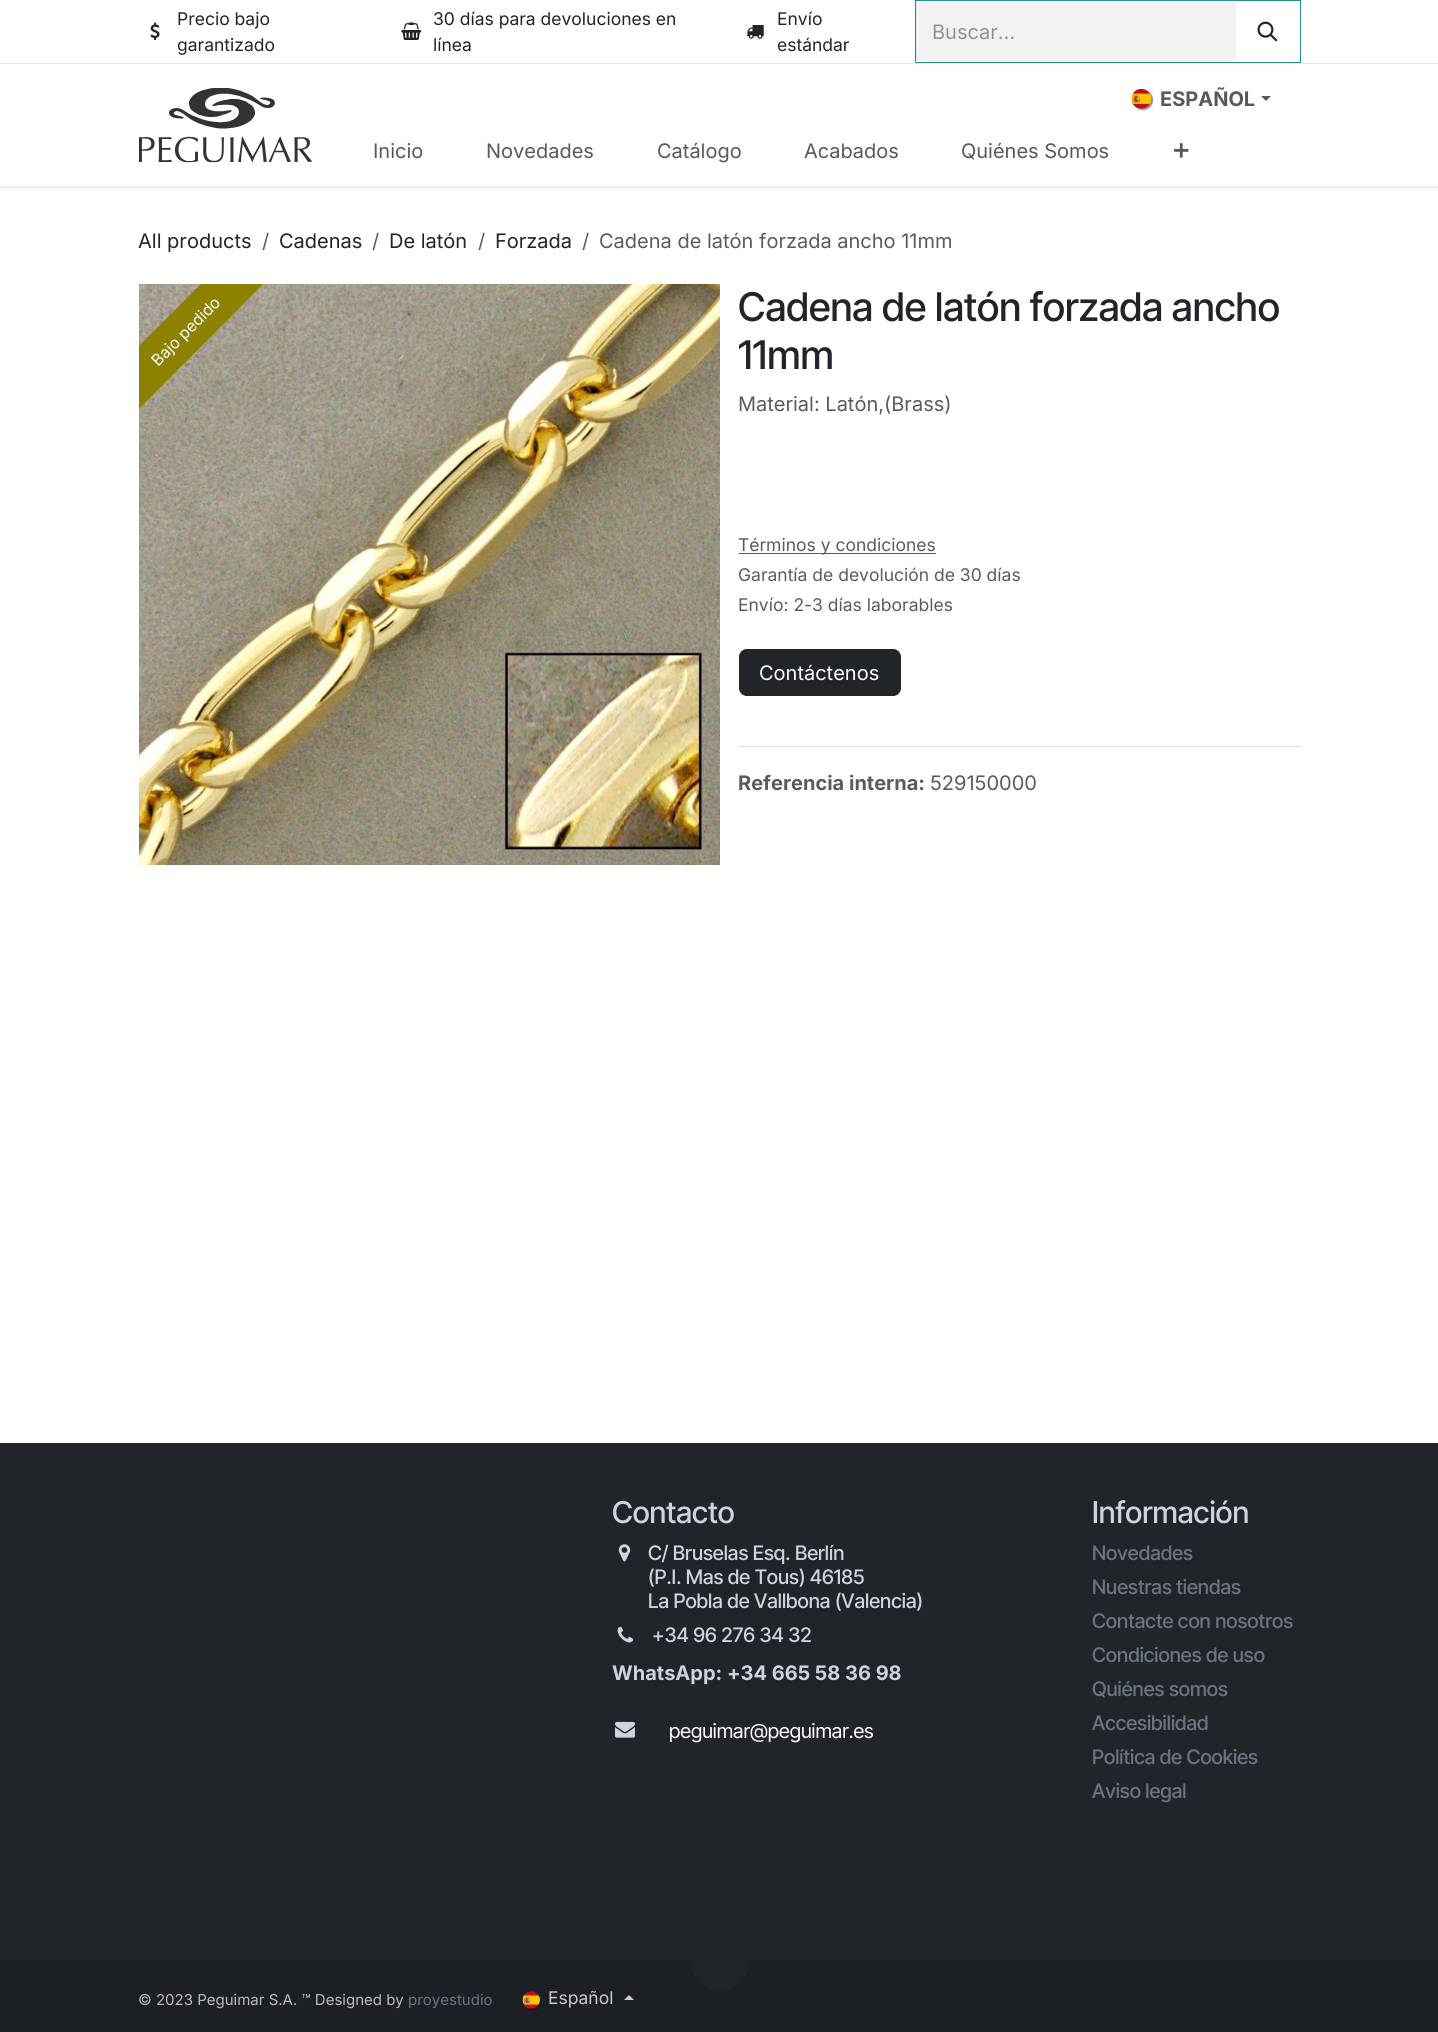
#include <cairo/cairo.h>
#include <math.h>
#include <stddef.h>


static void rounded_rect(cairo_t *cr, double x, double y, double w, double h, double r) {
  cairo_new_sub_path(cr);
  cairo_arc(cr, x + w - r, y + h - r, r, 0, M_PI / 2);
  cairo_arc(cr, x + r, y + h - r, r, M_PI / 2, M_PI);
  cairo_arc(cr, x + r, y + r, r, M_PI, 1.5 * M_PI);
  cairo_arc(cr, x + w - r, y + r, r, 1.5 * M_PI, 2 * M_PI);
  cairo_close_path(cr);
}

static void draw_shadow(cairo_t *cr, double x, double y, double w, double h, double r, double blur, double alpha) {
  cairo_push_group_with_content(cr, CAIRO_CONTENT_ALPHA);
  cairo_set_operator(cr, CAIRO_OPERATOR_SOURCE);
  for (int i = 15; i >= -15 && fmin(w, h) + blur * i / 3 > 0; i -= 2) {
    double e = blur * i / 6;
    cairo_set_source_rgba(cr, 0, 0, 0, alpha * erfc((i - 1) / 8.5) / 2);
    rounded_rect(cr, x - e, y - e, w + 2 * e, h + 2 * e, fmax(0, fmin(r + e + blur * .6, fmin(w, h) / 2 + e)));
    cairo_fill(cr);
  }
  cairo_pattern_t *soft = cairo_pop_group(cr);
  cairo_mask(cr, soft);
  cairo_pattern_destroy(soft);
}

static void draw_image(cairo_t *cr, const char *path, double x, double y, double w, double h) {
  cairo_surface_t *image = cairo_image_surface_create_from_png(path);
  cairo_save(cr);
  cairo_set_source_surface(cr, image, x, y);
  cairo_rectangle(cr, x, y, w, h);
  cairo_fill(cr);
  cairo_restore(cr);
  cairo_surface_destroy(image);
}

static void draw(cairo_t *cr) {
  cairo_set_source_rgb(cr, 1, 1, 1);
  cairo_paint(cr);
  cairo_save(cr);
  cairo_rectangle(cr, 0, 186, 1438, 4);
  cairo_clip(cr);
  cairo_set_source_rgb(cr, 0, 0, 0);
  draw_shadow(cr, 0, 1, 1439, 187, 0, 2, 0.1);
  cairo_restore(cr);
  cairo_set_source_rgb(cr, 230 / 255.0, 230 / 255.0, 230 / 255.0);
  cairo_rectangle(cr, 0, 63, 1438, 1);
  cairo_fill(cr);
  draw_image(cr, "images/1.png", 150, 22, 10, 18);
  draw_image(cr, "images/2.png", 401, 22, 21, 18);
  draw_image(cr, "images/3.png", 746, 25, 18, 14);
  cairo_rectangle(cr, 915.5, 0.5, 385, 62);
  cairo_set_source_rgb(cr, 39 / 255.0, 143 / 255.0, 132 / 255.0);
  cairo_set_line_width(cr, 1);
  cairo_stroke(cr);
  cairo_set_source_rgb(cr, 242 / 255.0, 242 / 255.0, 243 / 255.0);
  cairo_rectangle(cr, 918, 1, 318, 60);
  cairo_fill(cr);
  cairo_set_source_rgb(cr, 222 / 255.0, 222 / 255.0, 223 / 255.0);
  cairo_rectangle(cr, 916, 1, 1, 60);
  cairo_fill(cr);
  draw_image(cr, "images/4.png", 1257, 21, 21, 21);
  draw_image(cr, "images/5.png", 139, 88, 174, 75);
  cairo_set_source_rgb(cr, 0, 0, 0);
  draw_shadow(cr, 1133, 90, 20, 20, 10, 0.5, 0.43);
  draw_image(cr, "images/6.png", 1131, 88, 21, 21);
  cairo_set_source_rgb(cr, 89 / 255.0, 89 / 255.0, 89 / 255.0);
  cairo_new_path(cr);
  cairo_move_to(cr, 1261, 96);
  cairo_line_to(cr, 1271, 96);
  cairo_line_to(cr, 1266, 101);
  cairo_close_path(cr);
  cairo_fill(cr);
  draw_image(cr, "images/7.png", 1174, 143, 15, 15);
  draw_image(cr, "images/8.png", 139, 284, 581, 581);
  cairo_save(cr);
  cairo_rectangle(cr, 139, 284, 581, 581);
  cairo_clip(cr);
  cairo_set_source_rgb(cr, 140 / 255.0, 130 / 255.0, 0);
  cairo_new_path(cr);
  cairo_move_to(cr, 50, 435);
  cairo_line_to(cr, 290, 195);
  cairo_line_to(cr, 321, 226);
  cairo_line_to(cr, 81, 467);
  cairo_close_path(cr);
  cairo_fill(cr);
  cairo_restore(cr);
  cairo_set_source_rgb(cr, 89 / 255.0, 92 / 255.0, 95 / 255.0);
  cairo_rectangle(cr, 739, 553, 197, 1);
  cairo_fill(cr);
  cairo_set_source_rgb(cr, 33 / 255.0, 37 / 255.0, 41 / 255.0);
  rounded_rect(cr, 739.5, 649.5, 161, 46, 7.5);
  cairo_fill_preserve(cr);
  cairo_stroke(cr);
  cairo_set_source_rgb(cr, 222 / 255.0, 222 / 255.0, 223 / 255.0);
  cairo_rectangle(cr, 739, 746, 562, 1);
  cairo_fill(cr);
  cairo_set_source_rgb(cr, 33 / 255.0, 37 / 255.0, 41 / 255.0);
  cairo_rectangle(cr, 0, 1443, 1438, 517);
  cairo_fill(cr);
  draw_image(cr, "images/9.png", 618, 1544, 13, 18);
  draw_image(cr, "images/10.png", 617, 1626, 17, 17);
  draw_image(cr, "images/11.png", 615, 1721, 20, 17);
  cairo_set_source_rgb(cr, 28 / 255.0, 31 / 255.0, 35 / 255.0);
  cairo_rectangle(cr, 0, 1960, 1438, 72);
  cairo_fill(cr);
  cairo_set_source_rgb(cr, 33 / 255.0, 37 / 255.0, 41 / 255.0);
  cairo_arc(cr, 720, 1960, 30, 0, 2 * M_PI);
  cairo_fill(cr);
  cairo_set_source_rgb(cr, 0, 0, 0);
  draw_shadow(cr, 524, 1993, 17, 17, 8.5, 0.5, 0.43);
  draw_image(cr, "images/12.png", 522, 1991, 18, 18);
  cairo_set_source_rgb(cr, 204 / 255.0, 204 / 255.0, 204 / 255.0);
  cairo_new_path(cr);
  cairo_move_to(cr, 634, 2000);
  cairo_line_to(cr, 624, 2000);
  cairo_line_to(cr, 629, 1995);
  cairo_close_path(cr);
  cairo_fill(cr);
  cairo_select_font_face(cr, "Inter", CAIRO_FONT_SLANT_NORMAL, CAIRO_FONT_WEIGHT_NORMAL);
  cairo_set_font_size(cr, 17.5);
  cairo_set_source_rgb(cr, 33 / 255.0, 37 / 255.0, 41 / 255.0);
  cairo_move_to(cr, 177, 25);
  cairo_show_text(cr, "Precio bajo");
  cairo_move_to(cr, 177, 51);
  cairo_show_text(cr, "garantizado");
  cairo_move_to(cr, 433, 25);
  cairo_show_text(cr, "30 días para devoluciones en");
  cairo_move_to(cr, 433, 51);
  cairo_show_text(cr, "línea");
  cairo_move_to(cr, 777, 25);
  cairo_show_text(cr, "Envío");
  cairo_move_to(cr, 777, 51);
  cairo_show_text(cr, "estándar");
  cairo_set_font_size(cr, 20);
  cairo_set_source_rgb(cr, 144 / 255.0, 146 / 255.0, 148 / 255.0);
  cairo_move_to(cr, 932, 39);
  cairo_show_text(cr, "Buscar…");
  cairo_select_font_face(cr, "Inter", CAIRO_FONT_SLANT_NORMAL, CAIRO_FONT_WEIGHT_BOLD);
  cairo_set_source_rgb(cr, 89 / 255.0, 89 / 255.0, 89 / 255.0);
  cairo_move_to(cr, 1160, 106);
  cairo_show_text(cr, "ESPAÑOL");
  cairo_select_font_face(cr, "Inter", CAIRO_FONT_SLANT_NORMAL, CAIRO_FONT_WEIGHT_NORMAL);
  cairo_move_to(cr, 373, 158);
  cairo_show_text(cr, "Inicio");
  cairo_move_to(cr, 486, 158);
  cairo_show_text(cr, "Novedades");
  cairo_move_to(cr, 657, 158);
  cairo_show_text(cr, "Catálogo");
  cairo_move_to(cr, 804, 158);
  cairo_show_text(cr, "Acabados");
  cairo_move_to(cr, 961, 158);
  cairo_show_text(cr, "Quiénes Somos");
  cairo_set_source_rgb(cr, 33 / 255.0, 37 / 255.0, 41 / 255.0);
  cairo_move_to(cr, 138, 248);
  cairo_show_text(cr, "All products");
  cairo_set_source_rgb(cr, 89 / 255.0, 92 / 255.0, 95 / 255.0);
  cairo_move_to(cr, 262, 248);
  cairo_show_text(cr, "/");
  cairo_set_source_rgb(cr, 33 / 255.0, 37 / 255.0, 41 / 255.0);
  cairo_move_to(cr, 279, 248);
  cairo_show_text(cr, "Cadenas");
  cairo_set_source_rgb(cr, 89 / 255.0, 92 / 255.0, 95 / 255.0);
  cairo_move_to(cr, 372, 248);
  cairo_show_text(cr, "/");
  cairo_set_source_rgb(cr, 33 / 255.0, 37 / 255.0, 41 / 255.0);
  cairo_move_to(cr, 389, 248);
  cairo_show_text(cr, "De latón");
  cairo_set_source_rgb(cr, 89 / 255.0, 92 / 255.0, 95 / 255.0);
  cairo_move_to(cr, 478, 248);
  cairo_show_text(cr, "/");
  cairo_set_source_rgb(cr, 33 / 255.0, 37 / 255.0, 41 / 255.0);
  cairo_move_to(cr, 495, 248);
  cairo_show_text(cr, "Forzada");
  cairo_set_source_rgb(cr, 89 / 255.0, 92 / 255.0, 95 / 255.0);
  cairo_move_to(cr, 582, 248);
  cairo_show_text(cr, "/");
  cairo_move_to(cr, 599, 248);
  cairo_show_text(cr, "Cadena de latón forzada ancho 11mm");
  cairo_set_font_size(cr, 16);
  cairo_set_source_rgb(cr, 1, 1, 1);
  cairo_save(cr);
  cairo_translate(cr, 158, 367);
  cairo_rotate(cr, -45 * M_PI / 180);
  cairo_move_to(cr, 0, 0);
  cairo_show_text(cr, "Bajo pedido");
  cairo_restore(cr);
  cairo_select_font_face(cr, "Inter Tight Medium", CAIRO_FONT_SLANT_NORMAL, CAIRO_FONT_WEIGHT_NORMAL);
  cairo_set_font_size(cr, 39.5);
  cairo_set_source_rgb(cr, 33 / 255.0, 37 / 255.0, 41 / 255.0);
  cairo_move_to(cr, 738, 321);
  cairo_show_text(cr, "Cadena de latón forzada ancho");
  cairo_move_to(cr, 738, 369);
  cairo_show_text(cr, "11mm");
  cairo_select_font_face(cr, "Inter", CAIRO_FONT_SLANT_NORMAL, CAIRO_FONT_WEIGHT_NORMAL);
  cairo_set_font_size(cr, 20);
  cairo_set_source_rgb(cr, 89 / 255.0, 92 / 255.0, 95 / 255.0);
  cairo_move_to(cr, 738, 411);
  cairo_show_text(cr, "Material: Latón,(Brass)");
  cairo_set_font_size(cr, 17.5);
  cairo_move_to(cr, 738, 551);
  cairo_show_text(cr, "Términos y condiciones");
  cairo_move_to(cr, 738, 581);
  cairo_show_text(cr, "Garantía de devolución de 30 días");
  cairo_move_to(cr, 738, 611);
  cairo_show_text(cr, "Envío: 2-3 días laborables");
  cairo_set_font_size(cr, 20);
  cairo_set_source_rgb(cr, 1, 1, 1);
  cairo_move_to(cr, 759, 680);
  cairo_show_text(cr, "Contáctenos");
  cairo_select_font_face(cr, "Inter", CAIRO_FONT_SLANT_NORMAL, CAIRO_FONT_WEIGHT_BOLD);
  cairo_set_source_rgb(cr, 89 / 255.0, 92 / 255.0, 95 / 255.0);
  cairo_move_to(cr, 738, 790);
  cairo_show_text(cr, "Referencia interna:");
  cairo_select_font_face(cr, "Inter", CAIRO_FONT_SLANT_NORMAL, CAIRO_FONT_WEIGHT_NORMAL);
  cairo_move_to(cr, 930, 790);
  cairo_show_text(cr, "529150000");
  cairo_select_font_face(cr, "Inter Tight Medium", CAIRO_FONT_SLANT_NORMAL, CAIRO_FONT_WEIGHT_NORMAL);
  cairo_set_font_size(cr, 30);
  cairo_set_source_rgb(cr, 206 / 255.0, 212 / 255.0, 218 / 255.0);
  cairo_move_to(cr, 612, 1523);
  cairo_show_text(cr, "Contacto");
  cairo_set_font_size(cr, 20);
  cairo_move_to(cr, 648, 1560);
  cairo_show_text(cr, "C/ Bruselas Esq. Berlín");
  cairo_move_to(cr, 648, 1584);
  cairo_show_text(cr, "(P.I. Mas de Tous) 46185");
  cairo_move_to(cr, 648, 1608);
  cairo_show_text(cr, "La Pobla de Vallbona (Valencia)");
  cairo_move_to(cr, 652, 1642);
  cairo_show_text(cr, "+34 96 276 34 32");
  cairo_select_font_face(cr, "Inter", CAIRO_FONT_SLANT_NORMAL, CAIRO_FONT_WEIGHT_BOLD);
  cairo_move_to(cr, 612, 1680);
  cairo_show_text(cr, "WhatsApp: +34 665 58 36 98");
  cairo_select_font_face(cr, "Inter Tight", CAIRO_FONT_SLANT_NORMAL, CAIRO_FONT_WEIGHT_NORMAL);
  cairo_set_source_rgb(cr, 1, 1, 1);
  cairo_move_to(cr, 669, 1738);
  cairo_show_text(cr, "peguimar@peguimar.es");
  cairo_select_font_face(cr, "Inter Tight Medium", CAIRO_FONT_SLANT_NORMAL, CAIRO_FONT_WEIGHT_NORMAL);
  cairo_set_font_size(cr, 30);
  cairo_set_source_rgb(cr, 206 / 255.0, 212 / 255.0, 218 / 255.0);
  cairo_move_to(cr, 1092, 1523);
  cairo_show_text(cr, "Información");
  cairo_set_font_size(cr, 20);
  cairo_set_source_rgb(cr, 108 / 255.0, 117 / 255.0, 125 / 255.0);
  cairo_move_to(cr, 1092, 1560);
  cairo_show_text(cr, "Novedades");
  cairo_move_to(cr, 1092, 1594);
  cairo_show_text(cr, "Nuestras tiendas");
  cairo_move_to(cr, 1092, 1628);
  cairo_show_text(cr, "Contacte con nosotros");
  cairo_move_to(cr, 1092, 1662);
  cairo_show_text(cr, "Condiciones de uso");
  cairo_move_to(cr, 1092, 1696);
  cairo_show_text(cr, "Quiénes somos");
  cairo_move_to(cr, 1092, 1730);
  cairo_show_text(cr, "Accesibilidad");
  cairo_move_to(cr, 1092, 1764);
  cairo_show_text(cr, "Política de Cookies");
  cairo_move_to(cr, 1092, 1798);
  cairo_show_text(cr, "Aviso legal");
  cairo_select_font_face(cr, "Inter", CAIRO_FONT_SLANT_NORMAL, CAIRO_FONT_WEIGHT_NORMAL);
  cairo_set_font_size(cr, 15);
  cairo_set_source_rgb(cr, 187 / 255.0, 188 / 255.0, 189 / 255.0);
  cairo_move_to(cr, 138, 2005);
  cairo_show_text(cr, "© 2023 Peguimar S.A. ™ Designed by");
  cairo_set_source_rgb(cr, 108 / 255.0, 117 / 255.0, 125 / 255.0);
  cairo_move_to(cr, 408, 2005);
  cairo_show_text(cr, "proyestudio");
  cairo_set_font_size(cr, 17.5);
  cairo_set_source_rgb(cr, 204 / 255.0, 204 / 255.0, 204 / 255.0);
  cairo_move_to(cr, 548, 2004);
  cairo_show_text(cr, "Español");
}

int main(void) {
  cairo_surface_t *surface = cairo_image_surface_create(CAIRO_FORMAT_RGB24, 1438, 2032);
  cairo_t *cr = cairo_create(surface);
  cairo_font_options_t *options = cairo_font_options_create();
  cairo_font_options_set_hint_metrics(options, CAIRO_HINT_METRICS_OFF);
  cairo_font_options_set_hint_style(options, CAIRO_HINT_STYLE_NONE);
  cairo_set_font_options(cr, options);
  cairo_set_miter_limit(cr, 4);
  draw(cr);
  cairo_surface_write_to_png(surface, "out.png");
  cairo_font_options_destroy(options);
  cairo_destroy(cr);
  cairo_surface_destroy(surface);
  return 0;
}
